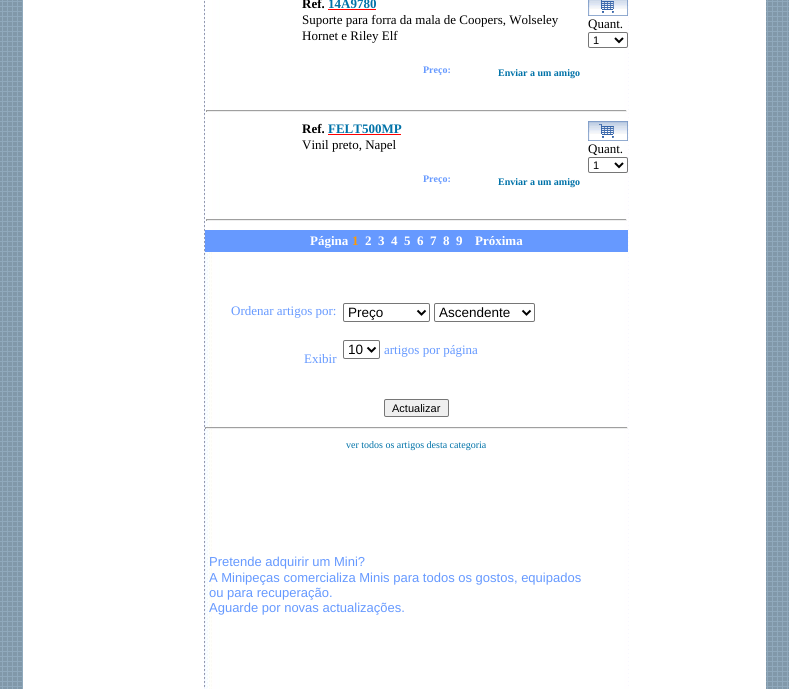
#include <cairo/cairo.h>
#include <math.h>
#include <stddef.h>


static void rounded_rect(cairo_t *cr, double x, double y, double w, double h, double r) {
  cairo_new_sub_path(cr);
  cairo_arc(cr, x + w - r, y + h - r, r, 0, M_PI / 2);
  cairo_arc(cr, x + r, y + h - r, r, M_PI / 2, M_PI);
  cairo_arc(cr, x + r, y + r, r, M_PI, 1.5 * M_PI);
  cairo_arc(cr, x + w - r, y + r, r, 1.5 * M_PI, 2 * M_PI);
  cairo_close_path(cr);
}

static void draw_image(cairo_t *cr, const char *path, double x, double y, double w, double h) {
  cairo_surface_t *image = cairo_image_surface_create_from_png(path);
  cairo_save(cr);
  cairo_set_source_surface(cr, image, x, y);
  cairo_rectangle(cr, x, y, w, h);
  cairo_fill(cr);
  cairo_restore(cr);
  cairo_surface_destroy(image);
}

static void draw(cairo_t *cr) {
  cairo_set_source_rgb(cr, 1, 1, 1);
  cairo_paint(cr);
  draw_image(cr, "images/1.png", 0, 0, 789, 689);
  cairo_set_source_rgb(cr, 1, 1, 1);
  cairo_rectangle(cr, 23, 0, 181, 689);
  cairo_fill(cr);
  draw_image(cr, "images/2.png", 204, 0, 425, 689);
  cairo_rectangle(cr, 205, 0, 7, 230);
  cairo_fill(cr);
  cairo_set_source_rgb(cr, 1, 0, 0);
  cairo_rectangle(cr, 328, 9, 48, 1);
  cairo_fill(cr);
  draw_image(cr, "images/3.png", 588, 0, 40, 16);
  rounded_rect(cr, 588.5, 32.5, 39, 15, 1.5);
  cairo_set_source_rgb(cr, 118 / 255.0, 118 / 255.0, 118 / 255.0);
  cairo_set_line_width(cr, 1);
  cairo_stroke(cr);
  cairo_new_path(cr);
  cairo_move_to(cr, 615, 38);
  cairo_line_to(cr, 619, 42);
  cairo_line_to(cr, 623, 38);
  cairo_set_source_rgb(cr, 0, 0, 0);
  cairo_set_line_width(cr, 2);
  cairo_stroke(cr);
  cairo_set_source_rgb(cr, 159 / 255.0, 159 / 255.0, 159 / 255.0);
  cairo_rectangle(cr, 206, 110, 421, 1);
  cairo_fill(cr);
  cairo_set_source_rgb(cr, 238 / 255.0, 238 / 255.0, 238 / 255.0);
  cairo_rectangle(cr, 626, 110, 1, 2);
  cairo_fill(cr);
  cairo_rectangle(cr, 206, 111, 421, 1);
  cairo_fill(cr);
  cairo_set_source_rgb(cr, 159 / 255.0, 159 / 255.0, 159 / 255.0);
  cairo_rectangle(cr, 206, 110, 1, 2);
  cairo_fill(cr);
  cairo_set_source_rgb(cr, 1, 0, 0);
  cairo_rectangle(cr, 328, 134, 73, 1);
  cairo_fill(cr);
  draw_image(cr, "images/4.png", 588, 121, 40, 20);
  rounded_rect(cr, 588.5, 157.5, 39, 15, 1.5);
  cairo_set_source_rgb(cr, 118 / 255.0, 118 / 255.0, 118 / 255.0);
  cairo_set_line_width(cr, 1);
  cairo_stroke(cr);
  cairo_new_path(cr);
  cairo_move_to(cr, 615, 163);
  cairo_line_to(cr, 619, 167);
  cairo_line_to(cr, 623, 163);
  cairo_set_source_rgb(cr, 0, 0, 0);
  cairo_set_line_width(cr, 2);
  cairo_stroke(cr);
  cairo_set_source_rgb(cr, 159 / 255.0, 159 / 255.0, 159 / 255.0);
  cairo_rectangle(cr, 206, 219, 421, 1);
  cairo_fill(cr);
  cairo_set_source_rgb(cr, 238 / 255.0, 238 / 255.0, 238 / 255.0);
  cairo_rectangle(cr, 626, 219, 1, 2);
  cairo_fill(cr);
  cairo_rectangle(cr, 206, 220, 421, 1);
  cairo_fill(cr);
  cairo_set_source_rgb(cr, 159 / 255.0, 159 / 255.0, 159 / 255.0);
  cairo_rectangle(cr, 206, 219, 1, 2);
  cairo_fill(cr);
  cairo_set_source_rgb(cr, 102 / 255.0, 153 / 255.0, 1);
  cairo_rectangle(cr, 205, 230, 423, 22);
  cairo_fill(cr);
  rounded_rect(cr, 343.5, 303.5, 86, 18, 1.5);
  cairo_set_source_rgb(cr, 118 / 255.0, 118 / 255.0, 118 / 255.0);
  cairo_set_line_width(cr, 1);
  cairo_stroke(cr);
  cairo_new_path(cr);
  cairo_move_to(cr, 417.5, 310.5);
  cairo_line_to(cr, 421.5, 314.5);
  cairo_line_to(cr, 425.5, 310.5);
  cairo_set_source_rgb(cr, 0, 0, 0);
  cairo_set_line_width(cr, 2);
  cairo_stroke(cr);
  rounded_rect(cr, 434.5, 303.5, 100, 18, 1.5);
  cairo_set_source_rgb(cr, 118 / 255.0, 118 / 255.0, 118 / 255.0);
  cairo_set_line_width(cr, 1);
  cairo_stroke(cr);
  cairo_new_path(cr);
  cairo_move_to(cr, 522.5, 310.5);
  cairo_line_to(cr, 526.5, 314.5);
  cairo_line_to(cr, 530.5, 310.5);
  cairo_set_source_rgb(cr, 0, 0, 0);
  cairo_set_line_width(cr, 2);
  cairo_stroke(cr);
  rounded_rect(cr, 343.5, 340.5, 36, 18, 1.5);
  cairo_set_source_rgb(cr, 118 / 255.0, 118 / 255.0, 118 / 255.0);
  cairo_set_line_width(cr, 1);
  cairo_stroke(cr);
  cairo_new_path(cr);
  cairo_move_to(cr, 367.5, 347.5);
  cairo_line_to(cr, 371.5, 351.5);
  cairo_line_to(cr, 375.5, 347.5);
  cairo_set_source_rgb(cr, 0, 0, 0);
  cairo_set_line_width(cr, 2);
  cairo_stroke(cr);
  cairo_set_source_rgb(cr, 239 / 255.0, 239 / 255.0, 239 / 255.0);
  rounded_rect(cr, 384.5, 399.5, 64, 17, 1.5);
  cairo_fill_preserve(cr);
  cairo_set_source_rgb(cr, 118 / 255.0, 118 / 255.0, 118 / 255.0);
  cairo_set_line_width(cr, 1);
  cairo_stroke(cr);
  cairo_set_source_rgb(cr, 159 / 255.0, 159 / 255.0, 159 / 255.0);
  cairo_rectangle(cr, 205, 427, 423, 1);
  cairo_fill(cr);
  cairo_set_source_rgb(cr, 238 / 255.0, 238 / 255.0, 238 / 255.0);
  cairo_rectangle(cr, 627, 427, 1, 2);
  cairo_fill(cr);
  cairo_rectangle(cr, 205, 428, 423, 1);
  cairo_fill(cr);
  cairo_set_source_rgb(cr, 159 / 255.0, 159 / 255.0, 159 / 255.0);
  cairo_rectangle(cr, 205, 427, 1, 2);
  cairo_fill(cr);
  cairo_set_source_rgb(cr, 1, 1, 1);
  cairo_rectangle(cr, 629, 0, 137, 689);
  cairo_fill(cr);
  cairo_select_font_face(cr, "Liberation Serif", CAIRO_FONT_SLANT_NORMAL, CAIRO_FONT_WEIGHT_BOLD);
  cairo_set_font_size(cr, 13);
  cairo_set_source_rgb(cr, 0, 0, 0);
  cairo_move_to(cr, 302, 8);
  cairo_show_text(cr, "Ref.");
  cairo_set_source_rgb(cr, 0, 114 / 255.0, 168 / 255.0);
  cairo_move_to(cr, 328, 8);
  cairo_show_text(cr, "14A9780");
  cairo_select_font_face(cr, "Liberation Serif", CAIRO_FONT_SLANT_NORMAL, CAIRO_FONT_WEIGHT_NORMAL);
  cairo_set_source_rgb(cr, 0, 0, 0);
  cairo_move_to(cr, 302, 24);
  cairo_show_text(cr, "Suporte para forra da mala de Coopers, Wolseley");
  cairo_move_to(cr, 302, 40);
  cairo_show_text(cr, "Hornet e Riley Elf");
  cairo_select_font_face(cr, "Liberation Serif", CAIRO_FONT_SLANT_NORMAL, CAIRO_FONT_WEIGHT_BOLD);
  cairo_set_font_size(cr, 10);
  cairo_set_source_rgb(cr, 102 / 255.0, 153 / 255.0, 1);
  cairo_move_to(cr, 423, 73);
  cairo_show_text(cr, "Preço:");
  cairo_set_source_rgb(cr, 0, 114 / 255.0, 168 / 255.0);
  cairo_move_to(cr, 498, 76);
  cairo_show_text(cr, "Enviar a um amigo");
  cairo_select_font_face(cr, "Liberation Serif", CAIRO_FONT_SLANT_NORMAL, CAIRO_FONT_WEIGHT_NORMAL);
  cairo_set_font_size(cr, 13);
  cairo_set_source_rgb(cr, 0, 0, 0);
  cairo_move_to(cr, 588, 28);
  cairo_show_text(cr, "Quant.");
  cairo_select_font_face(cr, "Liberation Sans", CAIRO_FONT_SLANT_NORMAL, CAIRO_FONT_WEIGHT_NORMAL);
  cairo_set_font_size(cr, 11);
  cairo_move_to(cr, 593, 44);
  cairo_show_text(cr, "1");
  cairo_select_font_face(cr, "Liberation Serif", CAIRO_FONT_SLANT_NORMAL, CAIRO_FONT_WEIGHT_BOLD);
  cairo_set_font_size(cr, 13);
  cairo_move_to(cr, 302, 133);
  cairo_show_text(cr, "Ref.");
  cairo_set_source_rgb(cr, 0, 114 / 255.0, 168 / 255.0);
  cairo_move_to(cr, 328, 133);
  cairo_show_text(cr, "FELT500MP");
  cairo_select_font_face(cr, "Liberation Serif", CAIRO_FONT_SLANT_NORMAL, CAIRO_FONT_WEIGHT_NORMAL);
  cairo_set_source_rgb(cr, 0, 0, 0);
  cairo_move_to(cr, 302, 149);
  cairo_show_text(cr, "Vinil preto, Napel");
  cairo_select_font_face(cr, "Liberation Serif", CAIRO_FONT_SLANT_NORMAL, CAIRO_FONT_WEIGHT_BOLD);
  cairo_set_font_size(cr, 10);
  cairo_set_source_rgb(cr, 102 / 255.0, 153 / 255.0, 1);
  cairo_move_to(cr, 423, 182);
  cairo_show_text(cr, "Preço:");
  cairo_set_source_rgb(cr, 0, 114 / 255.0, 168 / 255.0);
  cairo_move_to(cr, 498, 185);
  cairo_show_text(cr, "Enviar a um amigo");
  cairo_select_font_face(cr, "Liberation Serif", CAIRO_FONT_SLANT_NORMAL, CAIRO_FONT_WEIGHT_NORMAL);
  cairo_set_font_size(cr, 13);
  cairo_set_source_rgb(cr, 0, 0, 0);
  cairo_move_to(cr, 588, 153);
  cairo_show_text(cr, "Quant.");
  cairo_select_font_face(cr, "Liberation Sans", CAIRO_FONT_SLANT_NORMAL, CAIRO_FONT_WEIGHT_NORMAL);
  cairo_set_font_size(cr, 11);
  cairo_move_to(cr, 593, 169);
  cairo_show_text(cr, "1");
  cairo_select_font_face(cr, "Liberation Serif", CAIRO_FONT_SLANT_NORMAL, CAIRO_FONT_WEIGHT_BOLD);
  cairo_set_font_size(cr, 13);
  cairo_set_source_rgb(cr, 1, 1, 1);
  cairo_move_to(cr, 310, 245);
  cairo_show_text(cr, "Página");
  cairo_set_source_rgb(cr, 1, 153 / 255.0, 0);
  cairo_move_to(cr, 352, 245);
  cairo_show_text(cr, "1");
  cairo_set_source_rgb(cr, 1, 1, 1);
  cairo_move_to(cr, 365, 245);
  cairo_show_text(cr, "2");
  cairo_move_to(cr, 378, 245);
  cairo_show_text(cr, "3");
  cairo_move_to(cr, 391, 245);
  cairo_show_text(cr, "4");
  cairo_move_to(cr, 404, 245);
  cairo_show_text(cr, "5");
  cairo_move_to(cr, 417, 245);
  cairo_show_text(cr, "6");
  cairo_move_to(cr, 430, 245);
  cairo_show_text(cr, "7");
  cairo_move_to(cr, 443, 245);
  cairo_show_text(cr, "8");
  cairo_move_to(cr, 456, 245);
  cairo_show_text(cr, "9");
  cairo_move_to(cr, 475, 245);
  cairo_show_text(cr, "Próxima");
  cairo_select_font_face(cr, "Liberation Serif", CAIRO_FONT_SLANT_NORMAL, CAIRO_FONT_WEIGHT_NORMAL);
  cairo_set_source_rgb(cr, 102 / 255.0, 153 / 255.0, 1);
  cairo_move_to(cr, 231, 315);
  cairo_show_text(cr, "Ordenar artigos por:");
  cairo_move_to(cr, 304, 363);
  cairo_show_text(cr, "Exibir");
  cairo_select_font_face(cr, "Liberation Sans", CAIRO_FONT_SLANT_NORMAL, CAIRO_FONT_WEIGHT_NORMAL);
  cairo_set_font_size(cr, 13.5);
  cairo_set_source_rgb(cr, 0, 0, 0);
  cairo_move_to(cr, 348, 317);
  cairo_show_text(cr, "Preço");
  cairo_move_to(cr, 439, 317);
  cairo_show_text(cr, "Ascendente");
  cairo_move_to(cr, 348, 354);
  cairo_show_text(cr, "10");
  cairo_select_font_face(cr, "Liberation Serif", CAIRO_FONT_SLANT_NORMAL, CAIRO_FONT_WEIGHT_NORMAL);
  cairo_set_font_size(cr, 13);
  cairo_set_source_rgb(cr, 102 / 255.0, 153 / 255.0, 1);
  cairo_move_to(cr, 384, 354);
  cairo_show_text(cr, "artigos por página");
  cairo_select_font_face(cr, "Liberation Sans", CAIRO_FONT_SLANT_NORMAL, CAIRO_FONT_WEIGHT_NORMAL);
  cairo_set_font_size(cr, 11);
  cairo_set_source_rgb(cr, 0, 0, 0);
  cairo_move_to(cr, 392, 412);
  cairo_show_text(cr, "Actualizar");
  cairo_select_font_face(cr, "Liberation Serif", CAIRO_FONT_SLANT_NORMAL, CAIRO_FONT_WEIGHT_NORMAL);
  cairo_set_font_size(cr, 10);
  cairo_set_source_rgb(cr, 0, 114 / 255.0, 168 / 255.0);
  cairo_move_to(cr, 346, 448);
  cairo_show_text(cr, "ver todos os artigos desta categoria");
  cairo_select_font_face(cr, "Liberation Sans", CAIRO_FONT_SLANT_NORMAL, CAIRO_FONT_WEIGHT_NORMAL);
  cairo_set_font_size(cr, 13);
  cairo_set_source_rgb(cr, 102 / 255.0, 153 / 255.0, 1);
  cairo_move_to(cr, 209, 566);
  cairo_show_text(cr, "Pretende adquirir um Mini?");
  cairo_move_to(cr, 209, 582);
  cairo_show_text(cr, "A Minipeças comercializa Minis para todos os gostos, equipados");
  cairo_move_to(cr, 209, 597);
  cairo_show_text(cr, "ou para recuperação.");
  cairo_move_to(cr, 209, 612);
  cairo_show_text(cr, "Aguarde por novas actualizações.");
}

int main(void) {
  cairo_surface_t *surface = cairo_image_surface_create(CAIRO_FORMAT_RGB24, 789, 689);
  cairo_t *cr = cairo_create(surface);
  cairo_font_options_t *options = cairo_font_options_create();
  cairo_font_options_set_hint_metrics(options, CAIRO_HINT_METRICS_OFF);
  cairo_font_options_set_hint_style(options, CAIRO_HINT_STYLE_NONE);
  cairo_set_font_options(cr, options);
  cairo_set_miter_limit(cr, 4);
  draw(cr);
  cairo_surface_write_to_png(surface, "out.png");
  cairo_font_options_destroy(options);
  cairo_destroy(cr);
  cairo_surface_destroy(surface);
  return 0;
}
